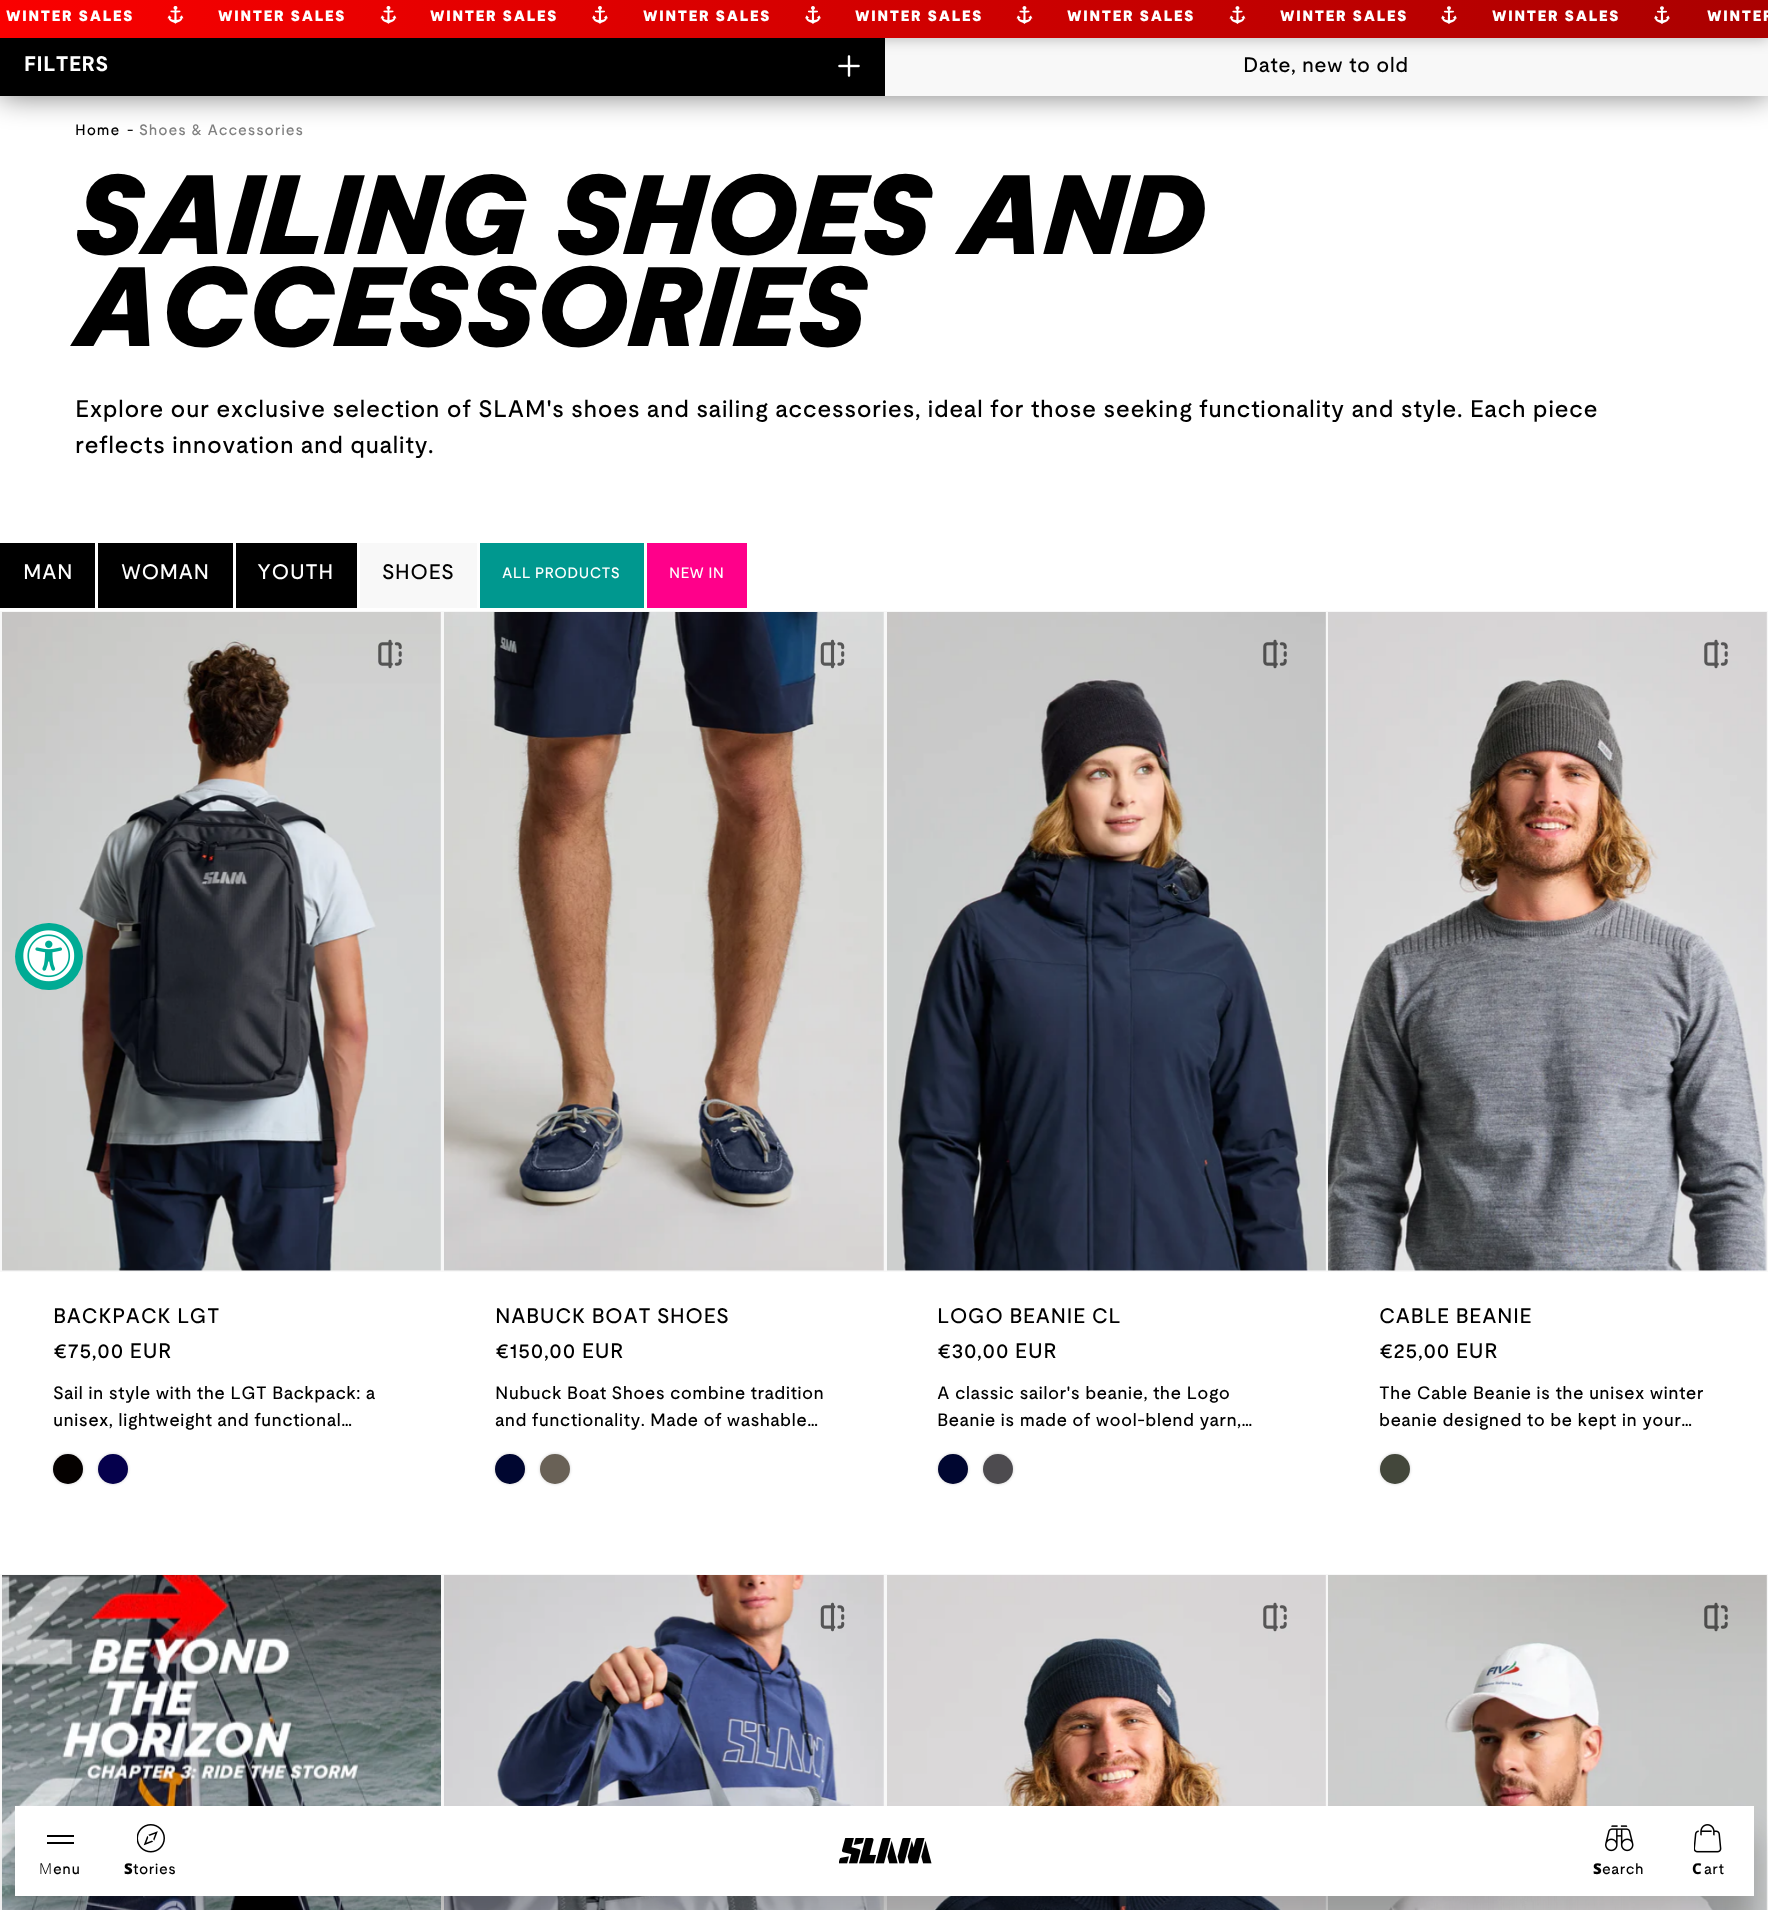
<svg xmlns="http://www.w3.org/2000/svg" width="1768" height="1910">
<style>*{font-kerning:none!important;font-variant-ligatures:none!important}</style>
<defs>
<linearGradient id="g1" gradientUnits="userSpaceOnUse" x1="0" y1="19" x2="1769" y2="19"><stop offset="0" stop-color="#fa0000"/><stop offset="1" stop-color="#a00"/></linearGradient>
</defs>
<rect width="100%" height="100%" fill="#fff"/>
<rect y="36" width="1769" height="60" fill="#00000085" filter="blur(15px)"/>
<rect x="885" y="38" width="883" height="58" fill="#f8f8f8"/>
<rect y="38" width="885" height="58" fill="#000"/>
<image x="838" y="55" width="22" height="22" href="media/24.png"/>
<rect width="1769" height="38" fill="#0000004a" filter="blur(7.5px)"/>
<rect width="1768" height="38" fill="url(#g1)"/>
<text x="6" y="21" style="font-family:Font;font-size:15px;font-weight:900;letter-spacing:1.75px;fill:#fff">WINTER SALES</text>
<image x="167" y="6" width="17" height="18" href="media/1.png"/>
<text x="218" y="21" style="font-family:Font;font-size:15px;font-weight:900;letter-spacing:1.75px;fill:#fff">WINTER SALES</text>
<image x="380" y="6" width="17" height="18" href="media/2.png"/>
<text x="430" y="21" style="font-family:Font;font-size:15px;font-weight:900;letter-spacing:1.75px;fill:#fff">WINTER SALES</text>
<image x="592" y="6" width="16" height="18" href="media/3.png"/>
<text x="643" y="21" style="font-family:Font;font-size:15px;font-weight:900;letter-spacing:1.75px;fill:#fff">WINTER SALES</text>
<image x="805" y="6" width="16" height="18" href="media/4.png"/>
<text x="855" y="21" style="font-family:Font;font-size:15px;font-weight:900;letter-spacing:1.75px;fill:#fff">WINTER SALES</text>
<image x="1016" y="6" width="17" height="18" href="media/5.png"/>
<text x="1067" y="21" style="font-family:Font;font-size:15px;font-weight:900;letter-spacing:1.75px;fill:#fff">WINTER SALES</text>
<image x="1229" y="6" width="17" height="18" href="media/6.png"/>
<text x="1280" y="21" style="font-family:Font;font-size:15px;font-weight:900;letter-spacing:1.75px;fill:#fff">WINTER SALES</text>
<image x="1441" y="6" width="16" height="18" href="media/7.png"/>
<text x="1492" y="21" style="font-family:Font;font-size:15px;font-weight:900;letter-spacing:1.75px;fill:#fff">WINTER SALES</text>
<image x="1654" y="6" width="16" height="18" href="media/8.png"/>
<text x="1707" y="21" style="font-family:Font;font-size:15px;font-weight:900;letter-spacing:1.75px;fill:#fff">WINTER</text>
<text x="1243" y="72" style="font-family:Font;font-size:21px;font-weight:500;letter-spacing:0.4px;fill:#000">Date, new to old</text>
<rect y="543" width="95" height="65" fill="#000"/>
<text x="23" y="579" style="font-family:Font;font-size:21px;font-weight:500;letter-spacing:0.4px;fill:#fff">MAN</text>
<rect x="98" y="543" width="135" height="65" fill="#000"/>
<text x="121" y="579" style="font-family:Font;font-size:21px;font-weight:500;letter-spacing:0.4px;fill:#fff">WOMAN</text>
<rect x="236" y="543" width="121" height="65" fill="#000"/>
<text x="257" y="579" style="font-family:Font;font-size:21px;font-weight:500;letter-spacing:0.4px;fill:#fff">YOUTH</text>
<rect x="360" y="543" width="117" height="65" fill="#f8f8f8"/>
<text x="382" y="579" style="font-family:Font;font-size:21px;font-weight:500;letter-spacing:0.4px;fill:#000">SHOES</text>
<rect x="480" y="543" width="164" height="65" fill="#00988f"/>
<text x="502" y="578" style="font-family:Font;font-size:15px;font-weight:500;letter-spacing:0.25px;fill:#fff">ALL PRODUCTS</text>
<rect x="647" y="543" width="100" height="65" fill="#ff008a"/>
<text x="669" y="578" style="font-family:Font;font-size:15px;font-weight:500;letter-spacing:0.25px;fill:#fff">NEW IN</text>
<rect x="1" y="612" width="441" height="659" fill="none" stroke="#f8f8f8" stroke-width="2"/>
<image x="2" y="612" width="439" height="659" href="media/10.png"/>
<image x="378" y="639" width="24" height="30" href="media/9.png"/>
<text x="53" y="1323" style="font-family:Font;font-size:21px;font-weight:500;letter-spacing:0.4px;fill:#000">BACKPACK LGT</text>
<text x="53" y="1358" style="font-family:Font;font-size:21px;font-weight:500;letter-spacing:0.4px;fill:#000">€75,00 EUR</text>
<text x="53" y="1399" style="font-family:Font;font-size:18px;font-weight:500;letter-spacing:0.35px;fill:#000">Sail in style with the LGT Backpack: a</text>
<text x="53" y="1426" style="font-family:Font;font-size:18px;font-weight:500;letter-spacing:0.35px;fill:#000">unisex, lightweight and functional…</text>
<rect x="53" y="1454" width="30" height="30" rx="15" fill="#00000033" filter="blur(1.5px)"/>
<circle cx="68" cy="1469" r="15" fill="#050100"/>
<rect x="98" y="1454" width="30" height="30" rx="15" fill="#00000033" filter="blur(1.5px)"/>
<circle cx="113" cy="1469" r="15" fill="#05004c"/>
<rect x="444" y="612" width="440" height="659" fill="none" stroke="#f8f8f8" stroke-width="2"/>
<image x="444" y="612" width="440" height="659" href="media/12.png"/>
<image x="820" y="639" width="25" height="30" href="media/11.png"/>
<text x="495" y="1323" style="font-family:Font;font-size:21px;font-weight:500;letter-spacing:0.4px;fill:#000">NABUCK BOAT SHOES</text>
<text x="495" y="1358" style="font-family:Font;font-size:21px;font-weight:500;letter-spacing:0.4px;fill:#000">€150,00 EUR</text>
<text x="495" y="1399" style="font-family:Font;font-size:18px;font-weight:500;letter-spacing:0.35px;fill:#000">Nubuck Boat Shoes combine tradition</text>
<text x="495" y="1426" style="font-family:Font;font-size:18px;font-weight:500;letter-spacing:0.35px;fill:#000">and functionality. Made of washable…</text>
<rect x="495" y="1454" width="30" height="30" rx="15" fill="#00000033" filter="blur(1.5px)"/>
<circle cx="510" cy="1469" r="15" fill="#000630"/>
<rect x="540" y="1454" width="30" height="30" rx="15" fill="#00000033" filter="blur(1.5px)"/>
<circle cx="555" cy="1469" r="15" fill="#696156"/>
<rect x="886" y="612" width="439" height="659" fill="none" stroke="#f8f8f8" stroke-width="2"/>
<image x="887" y="612" width="439" height="659" href="media/14.png"/>
<image x="1263" y="639" width="24" height="30" href="media/13.png"/>
<text x="937" y="1323" style="font-family:Font;font-size:21px;font-weight:500;letter-spacing:0.4px;fill:#000">LOGO BEANIE CL</text>
<text x="937" y="1358" style="font-family:Font;font-size:21px;font-weight:500;letter-spacing:0.4px;fill:#000">€30,00 EUR</text>
<text x="937" y="1399" style="font-family:Font;font-size:18px;font-weight:500;letter-spacing:0.35px;fill:#000">A classic sailor's beanie, the Logo</text>
<text x="937" y="1426" style="font-family:Font;font-size:18px;font-weight:500;letter-spacing:0.35px;fill:#000">Beanie is made of wool-blend yarn,…</text>
<rect x="938" y="1454" width="30" height="30" rx="15" fill="#00000033" filter="blur(1.5px)"/>
<circle cx="953" cy="1469" r="15" fill="#000630"/>
<rect x="983" y="1454" width="30" height="30" rx="15" fill="#00000033" filter="blur(1.5px)"/>
<circle cx="998" cy="1469" r="15" fill="#4d4b4f"/>
<rect x="1327" y="612" width="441" height="659" fill="none" stroke="#f8f8f8" stroke-width="2"/>
<image x="1328" y="612" width="439" height="659" href="media/16.png"/>
<image x="1704" y="639" width="24" height="30" href="media/15.png"/>
<text x="1379" y="1323" style="font-family:Font;font-size:21px;font-weight:500;letter-spacing:0.4px;fill:#000">CABLE BEANIE</text>
<text x="1379" y="1358" style="font-family:Font;font-size:21px;font-weight:500;letter-spacing:0.4px;fill:#000">€25,00 EUR</text>
<text x="1379" y="1399" style="font-family:Font;font-size:18px;font-weight:500;letter-spacing:0.35px;fill:#000">The Cable Beanie is the unisex winter</text>
<text x="1379" y="1426" style="font-family:Font;font-size:18px;font-weight:500;letter-spacing:0.35px;fill:#000">beanie designed to be kept in your…</text>
<rect x="1380" y="1454" width="30" height="30" rx="15" fill="#00000033" filter="blur(1.5px)"/>
<circle cx="1395" cy="1469" r="15" fill="#43473b"/>
<rect x="1" y="1575" width="441" height="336" fill="none" stroke="#f8f8f8" stroke-width="2"/>
<image x="2" y="1575" width="439" height="335" href="media/17.png"/>
<rect x="444" y="1575" width="440" height="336" fill="none" stroke="#f8f8f8" stroke-width="2"/>
<image x="444" y="1575" width="440" height="335" href="media/18.png"/>
<image x="820" y="1602" width="25" height="30" href="media/19.png"/>
<rect x="886" y="1575" width="439" height="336" fill="none" stroke="#f8f8f8" stroke-width="2"/>
<image x="887" y="1575" width="439" height="335" href="media/20.png"/>
<image x="1263" y="1602" width="24" height="30" href="media/21.png"/>
<rect x="1327" y="1575" width="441" height="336" fill="none" stroke="#f8f8f8" stroke-width="2"/>
<image x="1328" y="1575" width="439" height="335" href="media/22.png"/>
<image x="1704" y="1602" width="24" height="30" href="media/23.png"/>
<text x="24" y="71" style="font-family:Font;font-size:21px;font-weight:bold;letter-spacing:0.5px;fill:#fff">FILTERS</text>
<text x="75" y="135" style="font-family:Font;font-size:15px;font-weight:500;letter-spacing:0.9px;fill:#000">Home</text>
<text x="127" y="135" style="font-family:Font;font-size:15px;font-weight:500;letter-spacing:0.9px;fill:#000">-</text>
<text x="139" y="135" style="font-family:Font;font-size:15px;font-weight:500;letter-spacing:0.9px;fill:#808080">Shoes &amp; Accessories</text>
<text x="75" y="254" style="font-family:Font;font-size:112.5px;font-weight:900;font-style:italic;fill:#000">SAILING SHOES AND</text>
<text x="75" y="346" style="font-family:Font;font-size:112.5px;font-weight:900;font-style:italic;fill:#000">ACCESSORIES</text>
<text x="75" y="417" style="font-family:Font;font-size:24px;font-weight:500;letter-spacing:0.51px;fill:#000">Explore our exclusive selection of SLAM's</text>
<text x="571" y="417" style="font-family:Font;font-size:24px;font-weight:500;letter-spacing:0.51px;fill:#000">shoes and sailing accessories, ideal for those seeking</text>
<text x="1199" y="417" style="font-family:Font;font-size:24px;font-weight:500;letter-spacing:0.51px;fill:#000">functionality and style. Each piece</text>
<text x="75" y="453" style="font-family:Font;font-size:24px;font-weight:500;letter-spacing:0.51px;fill:#000">reflects innovation and quality.</text>
<rect x="15" y="923" width="68" height="67" rx="33.5" fill="#00ab94"/>
<image x="23" y="930" width="52" height="52" href="media/25.png"/>
<rect x="15" y="1836" width="1739" height="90" fill="#00000040" filter="blur(15px)"/>
<rect x="15" y="1806" width="1739" height="90" fill="#fff"/>
<image x="839" y="1838" width="93" height="26" href="media/26.png"/>
<rect x="47" y="1835" width="27" height="2" fill="#000"/>
<rect x="47" y="1842" width="27" height="2" fill="#000"/>
<text x="39" y="1874" style="font-family:Noto Sans;font-size:15px;font-weight:300;letter-spacing:0.51px;fill:#000">M</text>
<text x="53" y="1874" style="font-family:Font;font-size:15px;font-weight:500;letter-spacing:0.51px;fill:#000">enu</text>
<image x="137" y="1824" width="28" height="29" href="media/27.png"/>
<text x="124" y="1874" style="font-family:Noto Sans;font-size:15px;font-weight:900;letter-spacing:0.51px;fill:#000">S</text>
<text x="133" y="1874" style="font-family:Font;font-size:15px;font-weight:500;letter-spacing:0.51px;fill:#000">tories</text>
<image x="1605" y="1825" width="29" height="27" href="media/28.png"/>
<text x="1593" y="1874" style="font-family:Noto Sans;font-size:15px;font-weight:900;letter-spacing:0.51px;fill:#000">S</text>
<text x="1602" y="1874" style="font-family:Font;font-size:15px;font-weight:500;letter-spacing:0.51px;fill:#000">earch</text>
<image x="1694" y="1824" width="28" height="29" href="media/29.png"/>
<text x="1692" y="1874" style="font-family:Noto Sans;font-size:15px;font-weight:800;letter-spacing:0.51px;fill:#000">C</text>
<text x="1704" y="1874" style="font-family:Font;font-size:15px;font-weight:500;letter-spacing:0.51px;fill:#000">art</text>
</svg>
